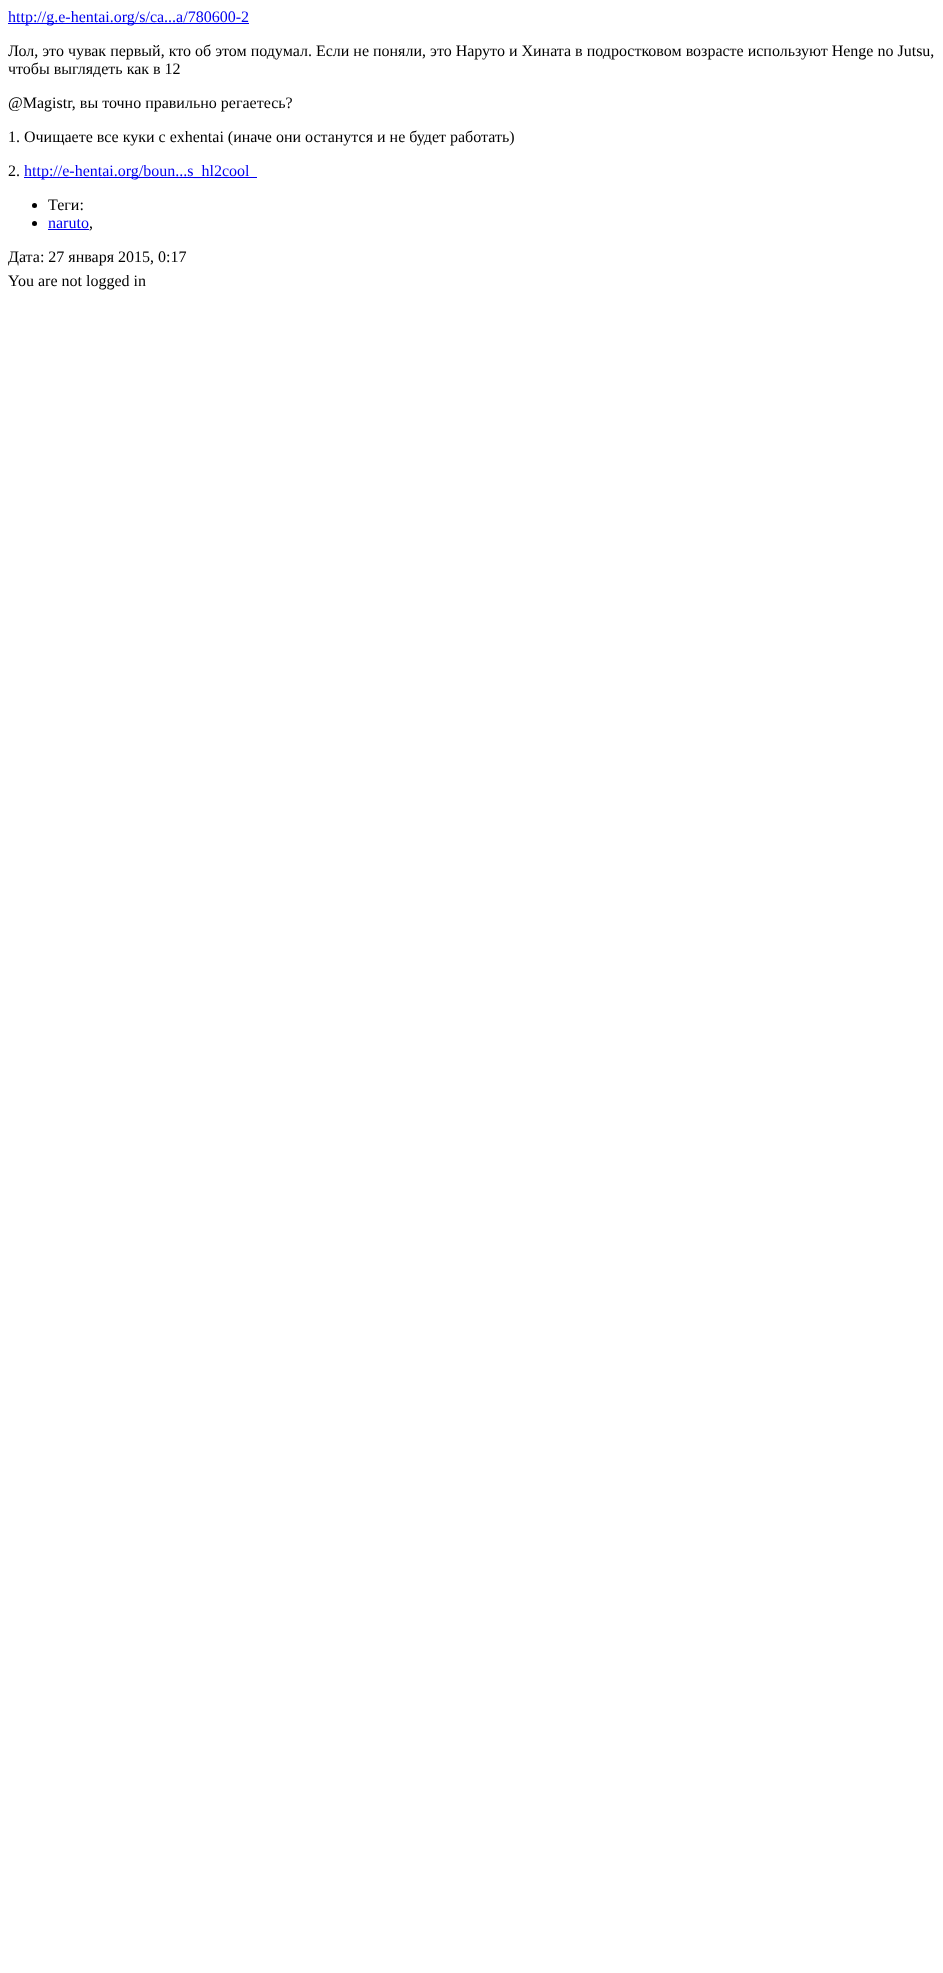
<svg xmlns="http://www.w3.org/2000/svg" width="943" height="1973">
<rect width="100%" height="100%" fill="#fff"/>
<rect x="8" y="23" width="241" height="1" fill="#00e"/>
<text x="8" y="22" style="font-family:Liberation Serif;font-size:16px;fill:#00e">http://g.e-hentai.org/s/ca...a/780600-2</text>
<text x="8" y="56" style="font-family:Liberation Serif;font-size:16px;fill:#000">Лол, это чувак первый, кто об этом подумал. Если не поняли, это Наруто и Хината в подростковом возрасте используют Henge no Jutsu,</text>
<text x="8" y="74" style="font-family:Liberation Serif;font-size:16px;fill:#000">чтобы выглядеть как в 12</text>
<text x="8" y="108" style="font-family:Liberation Serif;font-size:16px;fill:#000">@Magistr, вы точно правильно регаетесь?</text>
<text x="8" y="142" style="font-family:Liberation Serif;font-size:16px;fill:#000">1. Очищаете все куки с exhentai (иначе они останутся и не будет работать)</text>
<text x="8" y="176" style="font-family:Liberation Serif;font-size:16px;fill:#000">2.</text>
<rect x="24" y="177" width="233" height="1" fill="#00e"/>
<text x="24" y="176" style="font-family:Liberation Serif;font-size:16px;fill:#00e">http://e-hentai.org/boun...s_hl2cool</text>
<circle cx="34.5" cy="205.5" r="2.5" fill="#000"/>
<text x="48" y="210" style="font-family:Liberation Serif;font-size:16px;fill:#000">Теги:</text>
<circle cx="34.5" cy="223.5" r="2.5" fill="#000"/>
<text x="48" y="228" style="font-family:Liberation Serif;font-size:16px;fill:#00e">naruto</text>
<rect x="48" y="229" width="41" height="1" fill="#00e"/>
<text x="89" y="228" style="font-family:Liberation Serif;font-size:16px;fill:#000">,</text>
<text x="8" y="262" style="font-family:Liberation Serif;font-size:16px;fill:#000">Дата: 27 января 2015, 0:17</text>
<text x="8" y="286" style="font-family:Liberation Serif;font-size:16px;fill:#000">You are not logged in</text>
</svg>
